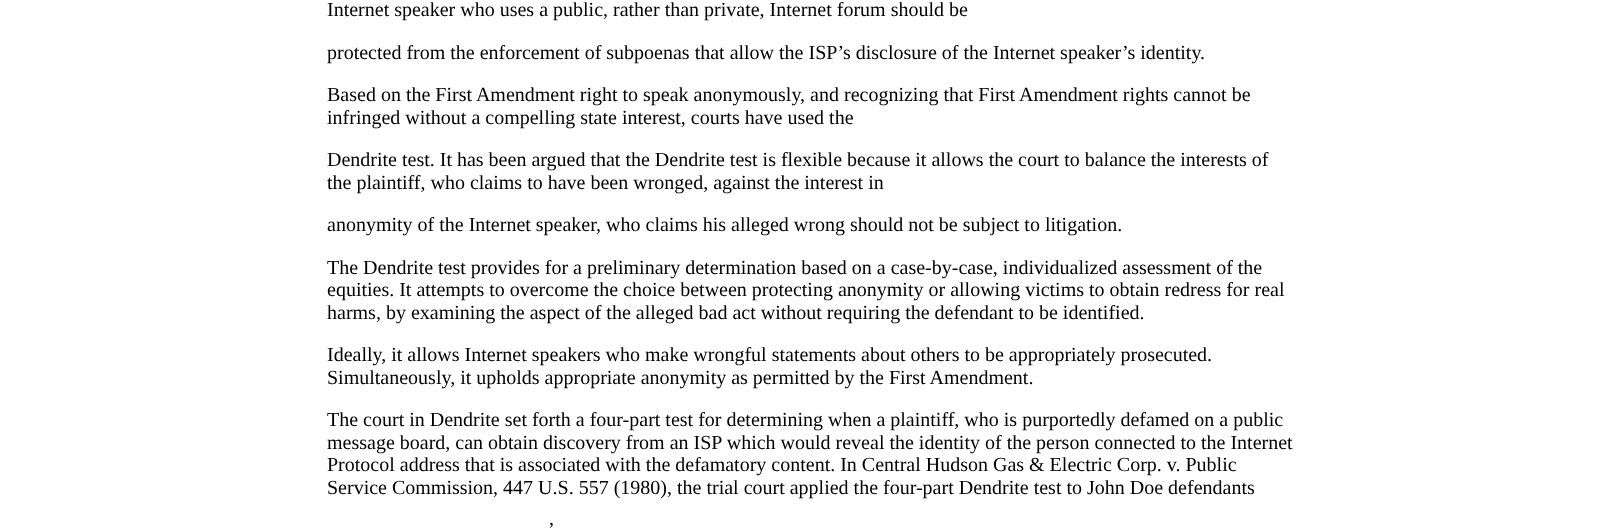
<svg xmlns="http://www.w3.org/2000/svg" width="1622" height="530">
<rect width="100%" height="100%" fill="#fff"/>
<text x="327" y="16" style="font-family:Liberation Serif;font-size:20px;fill:#000">Internet speaker who uses a public, rather than private, Internet forum should be</text>
<text x="327" y="59" style="font-family:Liberation Serif;font-size:20px;fill:#000">protected from the enforcement of subpoenas that allow the ISP’s disclosure of the Internet speaker’s identity.</text>
<text x="327" y="101" style="font-family:Liberation Serif;font-size:20px;fill:#000">Based on the First Amendment right to speak anonymously, and recognizing that First Amendment rights cannot be</text>
<text x="327" y="124" style="font-family:Liberation Serif;font-size:20px;fill:#000">infringed without a compelling state interest, courts have used the</text>
<text x="327" y="166" style="font-family:Liberation Serif;font-size:20px;fill:#000">Dendrite test. It has been argued that the Dendrite test is flexible because it allows the court to balance the interests of</text>
<text x="327" y="189" style="font-family:Liberation Serif;font-size:20px;fill:#000">the plaintiff, who claims to have been wronged, against the interest in</text>
<text x="327" y="231" style="font-family:Liberation Serif;font-size:20px;fill:#000">anonymity of the Internet speaker, who claims his alleged wrong should not be subject to litigation.</text>
<text x="327" y="274" style="font-family:Liberation Serif;font-size:20px;fill:#000">The Dendrite test provides for a preliminary determination based on a case-by-case, individualized assessment of the</text>
<text x="327" y="296" style="font-family:Liberation Serif;font-size:20px;fill:#000">equities. It attempts to overcome the choice between protecting anonymity or allowing victims to obtain redress for real</text>
<text x="327" y="319" style="font-family:Liberation Serif;font-size:20px;fill:#000">harms, by examining the aspect of the alleged bad act without requiring the defendant to be identified.</text>
<text x="327" y="361" style="font-family:Liberation Serif;font-size:20px;fill:#000">Ideally, it allows Internet speakers who make wrongful statements about others to be appropriately prosecuted.</text>
<text x="327" y="384" style="font-family:Liberation Serif;font-size:20px;fill:#000">Simultaneously, it upholds appropriate anonymity as permitted by the First Amendment.</text>
<text x="327" y="426" style="font-family:Liberation Serif;font-size:20px;fill:#000">The court in Dendrite set forth a four-part test for determining when a plaintiff, who is purportedly defamed on a public</text>
<text x="327" y="449" style="font-family:Liberation Serif;font-size:20px;fill:#000">message board, can obtain discovery from an ISP which would reveal the identity of the person connected to the Internet</text>
<text x="327" y="471" style="font-family:Liberation Serif;font-size:20px;fill:#000">Protocol address that is associated with the defamatory content. In Central Hudson Gas &amp; Electric Corp. v. Public</text>
<text x="327" y="494" style="font-family:Liberation Serif;font-size:20px;fill:#000">Service Commission, 447 U.S. 557 (1980), the trial court applied the four-part Dendrite test to John Doe defendants</text>
<text x="548" y="536" style="font-family:Liberation Serif;font-size:20px;fill:#000">’</text>
</svg>
